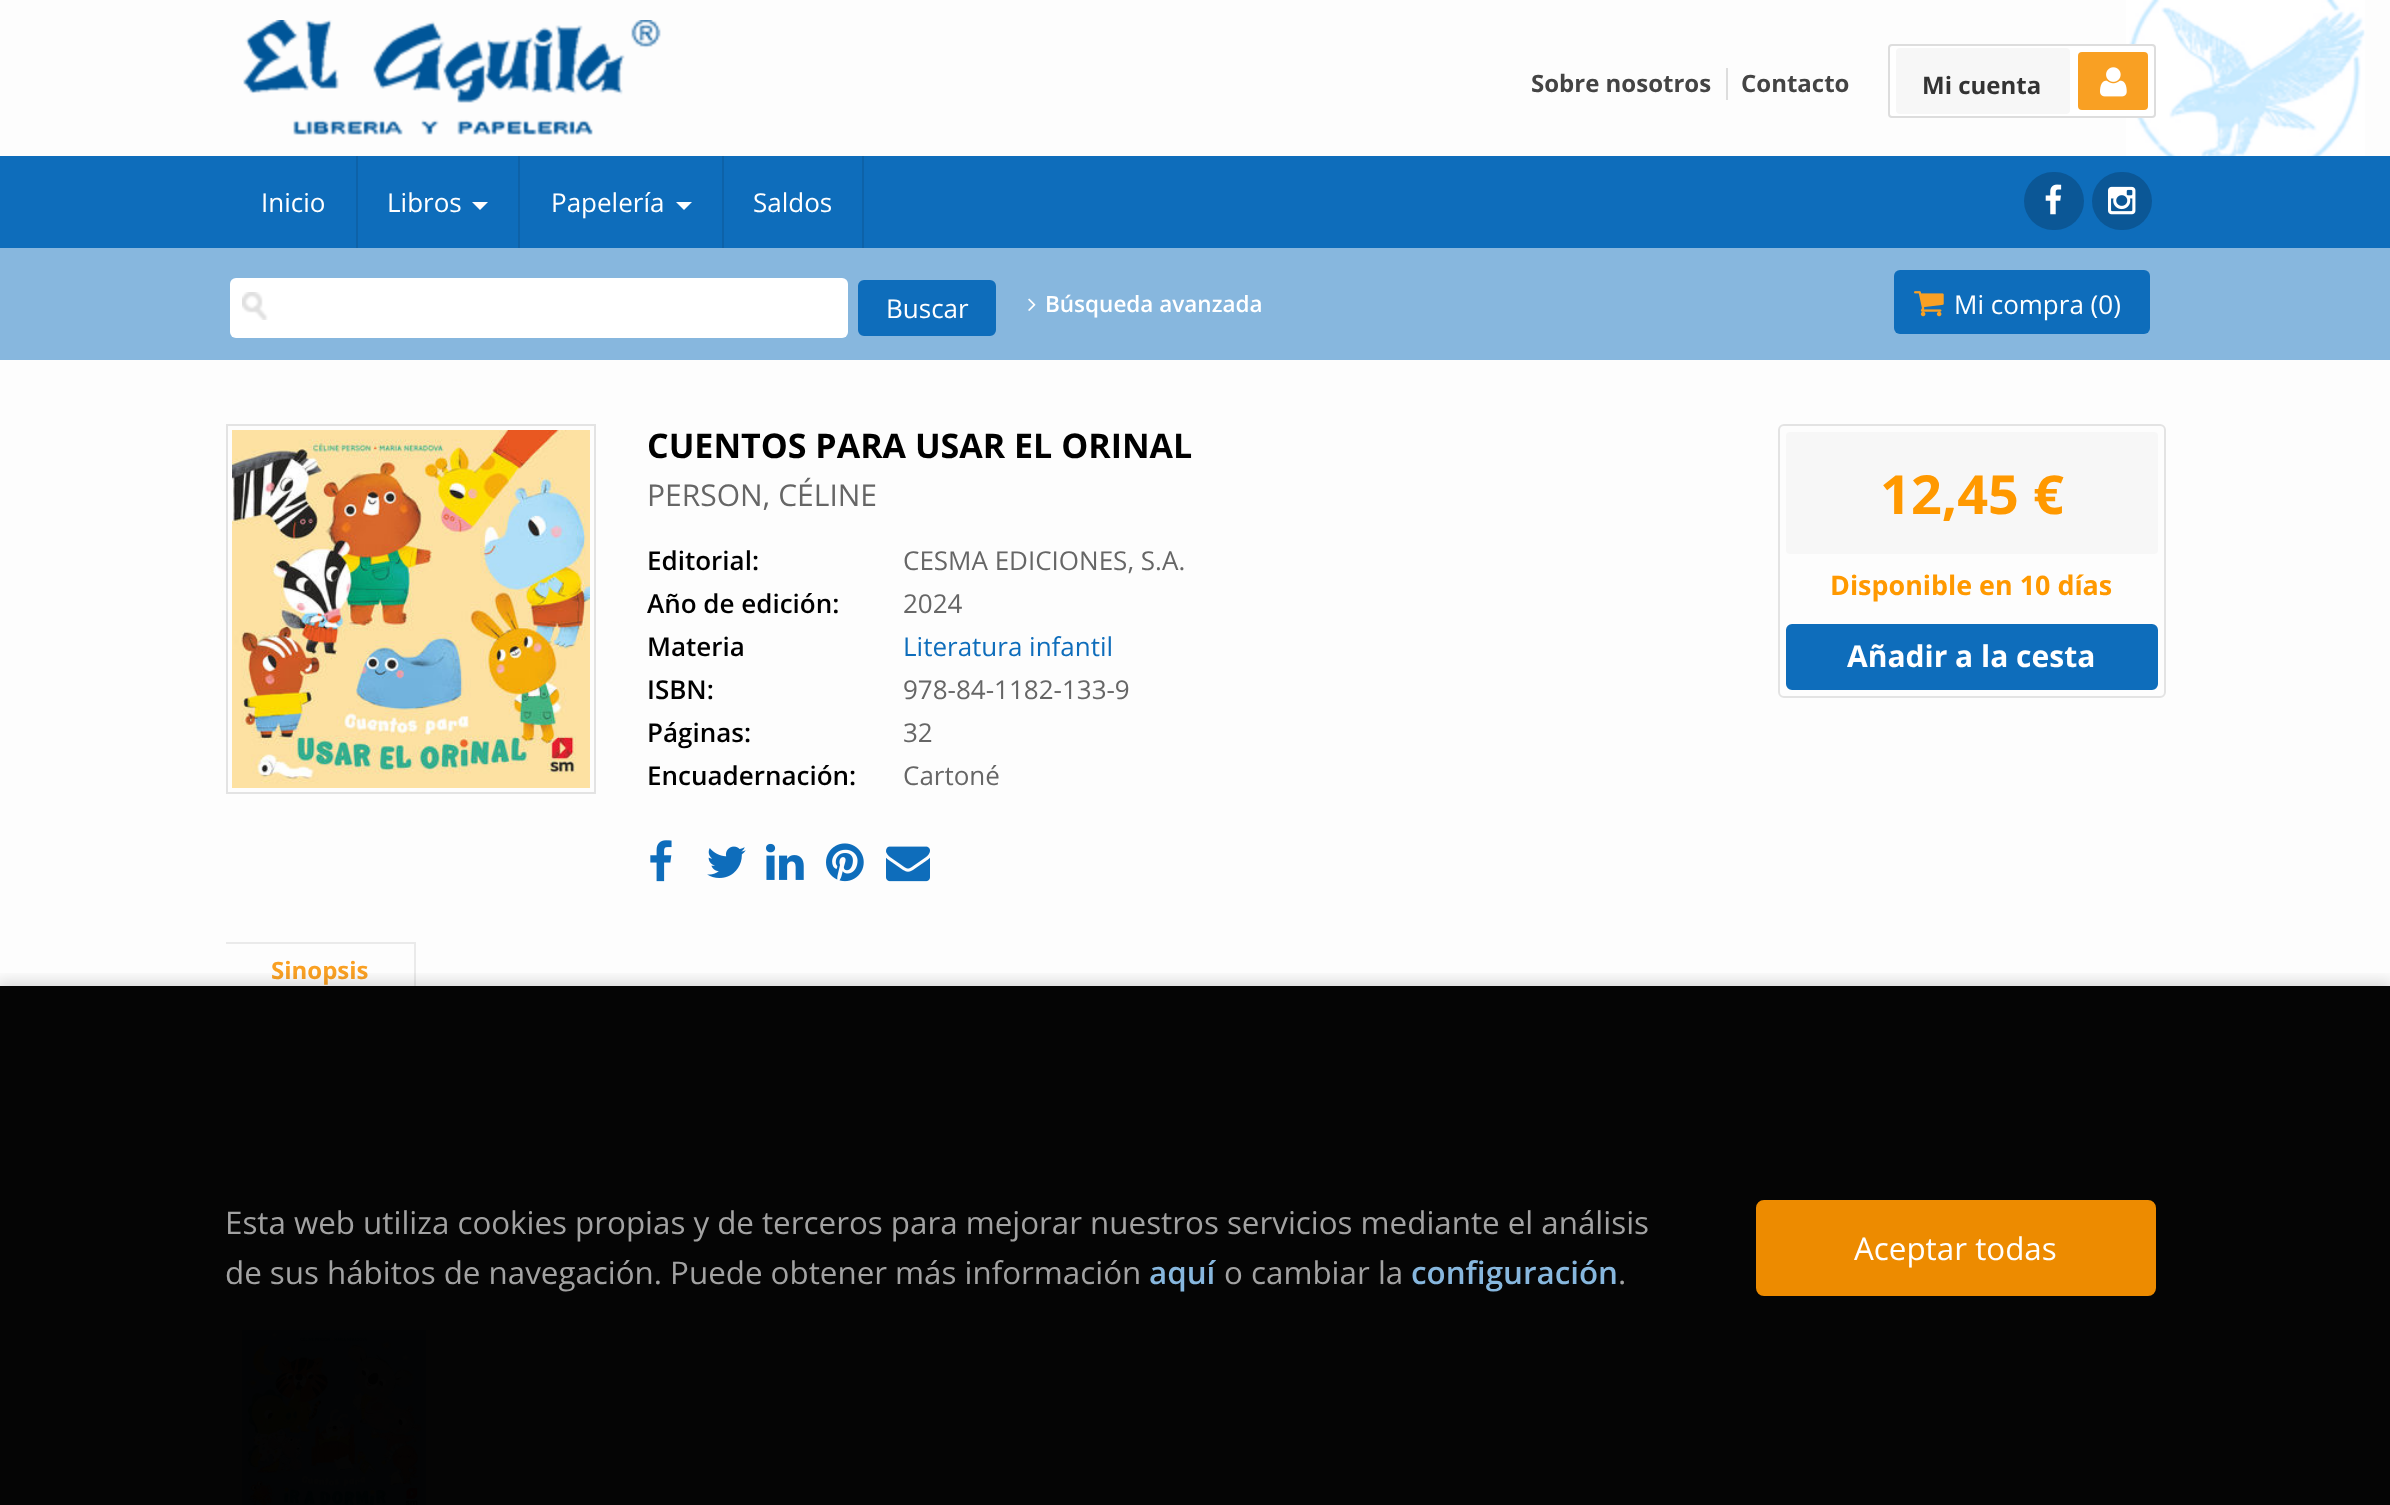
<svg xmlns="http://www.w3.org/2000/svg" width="2390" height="1505">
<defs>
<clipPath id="clip1"><rect x="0" y="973" width="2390" height="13"/></clipPath>
</defs>
<rect width="100%" height="100%" fill="#fdfdfd"/>
<rect y="986" width="2390" height="519" fill="#050505"/>
<image x="2126" y="0" width="239" height="156" href="media/1.png"/>
<image x="243" y="20" width="418" height="115" href="media/2.png"/>
<rect x="1726" y="68" width="2" height="32" fill="#ddd"/>
<text x="1531" y="92" style="font-family:Open Sans;font-size:24px;font-weight:bold;fill:#444">Sobre nosotros</text>
<text x="1741" y="92" style="font-family:Open Sans;font-size:24px;font-weight:bold;fill:#444">Contacto</text>
<rect x="1889" y="45" width="266" height="72" rx="3" fill="#fff" stroke="#ddd" stroke-width="2"/>
<rect x="1896" y="48" width="174" height="66" rx="4" fill="#f7f7f7"/>
<text x="1922" y="94" style="font-family:Open Sans;font-size:24px;font-weight:bold;fill:#333">Mi cuenta</text>
<rect x="2078" y="52" width="70" height="58" rx="4" fill="#f9a023"/>
<image x="2100" y="67" width="27" height="30" href="media/3.png"/>
<rect y="156" width="2390" height="92" fill="#0e6dbb"/>
<rect x="356" y="156" width="2" height="92" fill="#0d62a8"/>
<text x="261" y="212" style="font-family:Open Sans;font-size:26px;fill:#fff">Inicio</text>
<rect x="518" y="156" width="2" height="92" fill="#0d62a8"/>
<text x="387" y="212" style="font-family:Open Sans;font-size:26px;fill:#fff">Libros</text>
<path d="M472 202h16l-8 8z" fill="#fff"/>
<rect x="722" y="156" width="2" height="92" fill="#0d62a8"/>
<text x="551" y="212" style="font-family:Open Sans;font-size:26px;fill:#fff">Papelería</text>
<path d="M676 202h16l-8 8z" fill="#fff"/>
<rect x="862" y="156" width="2" height="92" fill="#0d62a8"/>
<text x="753" y="212" style="font-family:Open Sans;font-size:26px;fill:#fff">Saldos</text>
<rect x="2024" y="172" width="60" height="58" rx="29" fill="#0b5796"/>
<image x="2045" y="184" width="17" height="31" href="media/4.png"/>
<rect x="2092" y="172" width="60" height="58" rx="29" fill="#0b5796"/>
<image x="2108" y="186" width="28" height="29" href="media/5.png"/>
<rect y="248" width="2390" height="112" fill="#87b7de"/>
<rect x="230" y="278" width="618" height="60" rx="6" fill="#fff"/>
<image x="242" y="292" width="26" height="28" href="media/6.png"/>
<rect x="859" y="281" width="136" height="54" rx="5" fill="#0e6dbb" stroke="#0e6dbb" stroke-width="2"/>
<text x="886" y="318" style="font-family:Open Sans;font-size:26px;fill:#fff">Buscar</text>
<image x="1028" y="298" width="8" height="13" href="media/7.png"/>
<text x="1045" y="312" style="font-family:Open Sans;font-size:22.5px;font-weight:600;fill:#fff">Búsqueda avanzada</text>
<rect x="1894" y="270" width="256" height="64" rx="6" fill="#0e6dbb"/>
<image x="1914" y="291" width="30" height="26" href="media/8.png"/>
<text x="1954" y="314" style="font-family:Open Sans;font-size:26px;fill:#fff">Mi compra (0)</text>
<rect x="227" y="425" width="368" height="368" fill="none" stroke="#e3e3e3" stroke-width="2"/>
<image x="232" y="430" width="358" height="358" href="media/9.png"/>
<text x="647" y="458" style="font-family:Open Sans;font-size:34px;font-weight:bold;fill:#000">CUENTOS PARA USAR EL ORINAL</text>
<text x="647" y="506" style="font-family:Open Sans;font-size:30px;fill:#666">PERSON, CÉLINE</text>
<text x="647" y="570" style="font-family:Open Sans;font-size:26px;font-weight:600;fill:#000">Editorial:</text>
<text x="903" y="570" style="font-family:Open Sans;font-size:26px;fill:#666">CESMA EDICIONES, S.A.</text>
<text x="647" y="613" style="font-family:Open Sans;font-size:26px;font-weight:600;fill:#000">Año de edición:</text>
<text x="903" y="613" style="font-family:Open Sans;font-size:26px;fill:#666">2024</text>
<text x="647" y="656" style="font-family:Open Sans;font-size:26px;font-weight:600;fill:#000">Materia</text>
<text x="903" y="656" style="font-family:Open Sans;font-size:26px;fill:#0e6dbb">Literatura infantil</text>
<text x="647" y="699" style="font-family:Open Sans;font-size:26px;font-weight:600;fill:#000">ISBN:</text>
<text x="903" y="699" style="font-family:Open Sans;font-size:26px;fill:#666">978-84-1182-133-9</text>
<text x="647" y="742" style="font-family:Open Sans;font-size:26px;font-weight:600;fill:#000">Páginas:</text>
<text x="903" y="742" style="font-family:Open Sans;font-size:26px;fill:#666">32</text>
<text x="647" y="785" style="font-family:Open Sans;font-size:26px;font-weight:600;fill:#000">Encuadernación:</text>
<text x="903" y="785" style="font-family:Open Sans;font-size:26px;fill:#666">Cartoné</text>
<image x="650" y="840" width="22" height="42" href="media/10.png"/>
<image x="707" y="846" width="39" height="32" href="media/11.png"/>
<image x="766" y="843" width="38" height="37" href="media/12.png"/>
<image x="826" y="843" width="38" height="39" href="media/13.png"/>
<image x="886" y="846" width="44" height="36" href="media/14.png"/>
<rect x="1779" y="425" width="386" height="272" rx="5" fill="none" stroke="#e3e3e3" stroke-width="2"/>
<rect x="1786" y="432" width="372" height="122" rx="4" fill="#f7f7f7"/>
<text x="1880" y="514" style="font-family:Open Sans;font-size:54px;font-weight:bold;fill:#f90">12,45 €</text>
<text x="1830" y="595" style="font-family:Open Sans;font-size:26.9px;font-weight:bold;fill:#f90">Disponible en 10 días</text>
<rect x="1787" y="625" width="370" height="64" rx="5" fill="#0e6dbb" stroke="#0e6dbb" stroke-width="2"/>
<text x="1847" y="667" style="font-family:Open Sans;font-size:30px;font-weight:bold;fill:#fff">Añadir a la cesta</text>
<rect x="226" y="942" width="190" height="2" fill="#eaeaea"/>
<rect x="414" y="942" width="2" height="44" fill="#eaeaea"/>
<text x="271" y="979" style="font-family:Open Sans;font-size:24px;font-weight:bold;fill:#f9a023">Sinopsis</text>
<image x="242" y="1330" width="184" height="175" href="media/15.png"/>
<g clip-path="url(#clip1)">
<rect x="-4" y="982" width="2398" height="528" fill="#00000026" filter="blur(8px)"/>
</g>
<text x="225" y="1234" word-spacing="-0.1" style="font-family:Open Sans;font-size:31.35px;fill:#a2a2a2">Esta web utiliza cookies propias y de terceros para mejorar nuestros servicios mediante el análisis</text>
<text x="225" y="1284" word-spacing="-0.1" style="font-family:Open Sans;font-size:31.35px;fill:#a2a2a2">de sus hábitos de navegación. Puede obtener más información</text>
<text x="1149" y="1284" style="font-family:Open Sans;font-size:31.35px;font-weight:600;fill:#87b7de">aquí</text>
<text x="1224" y="1284" style="font-family:Open Sans;font-size:31.35px;fill:#a2a2a2">o cambiar la</text>
<text x="1411" y="1284" style="font-family:Open Sans;font-size:31.35px;font-weight:600;fill:#87b7de">configuración</text>
<text x="1618" y="1284" style="font-family:Open Sans;font-size:31.35px;fill:#a2a2a2">.</text>
<rect x="1757" y="1201" width="398" height="94" rx="7" fill="#ed8b00" stroke="#ed8b00" stroke-width="2"/>
<text x="1854" y="1260" style="font-family:Open Sans;font-size:31.35px;fill:#fff">Aceptar todas</text>
</svg>
